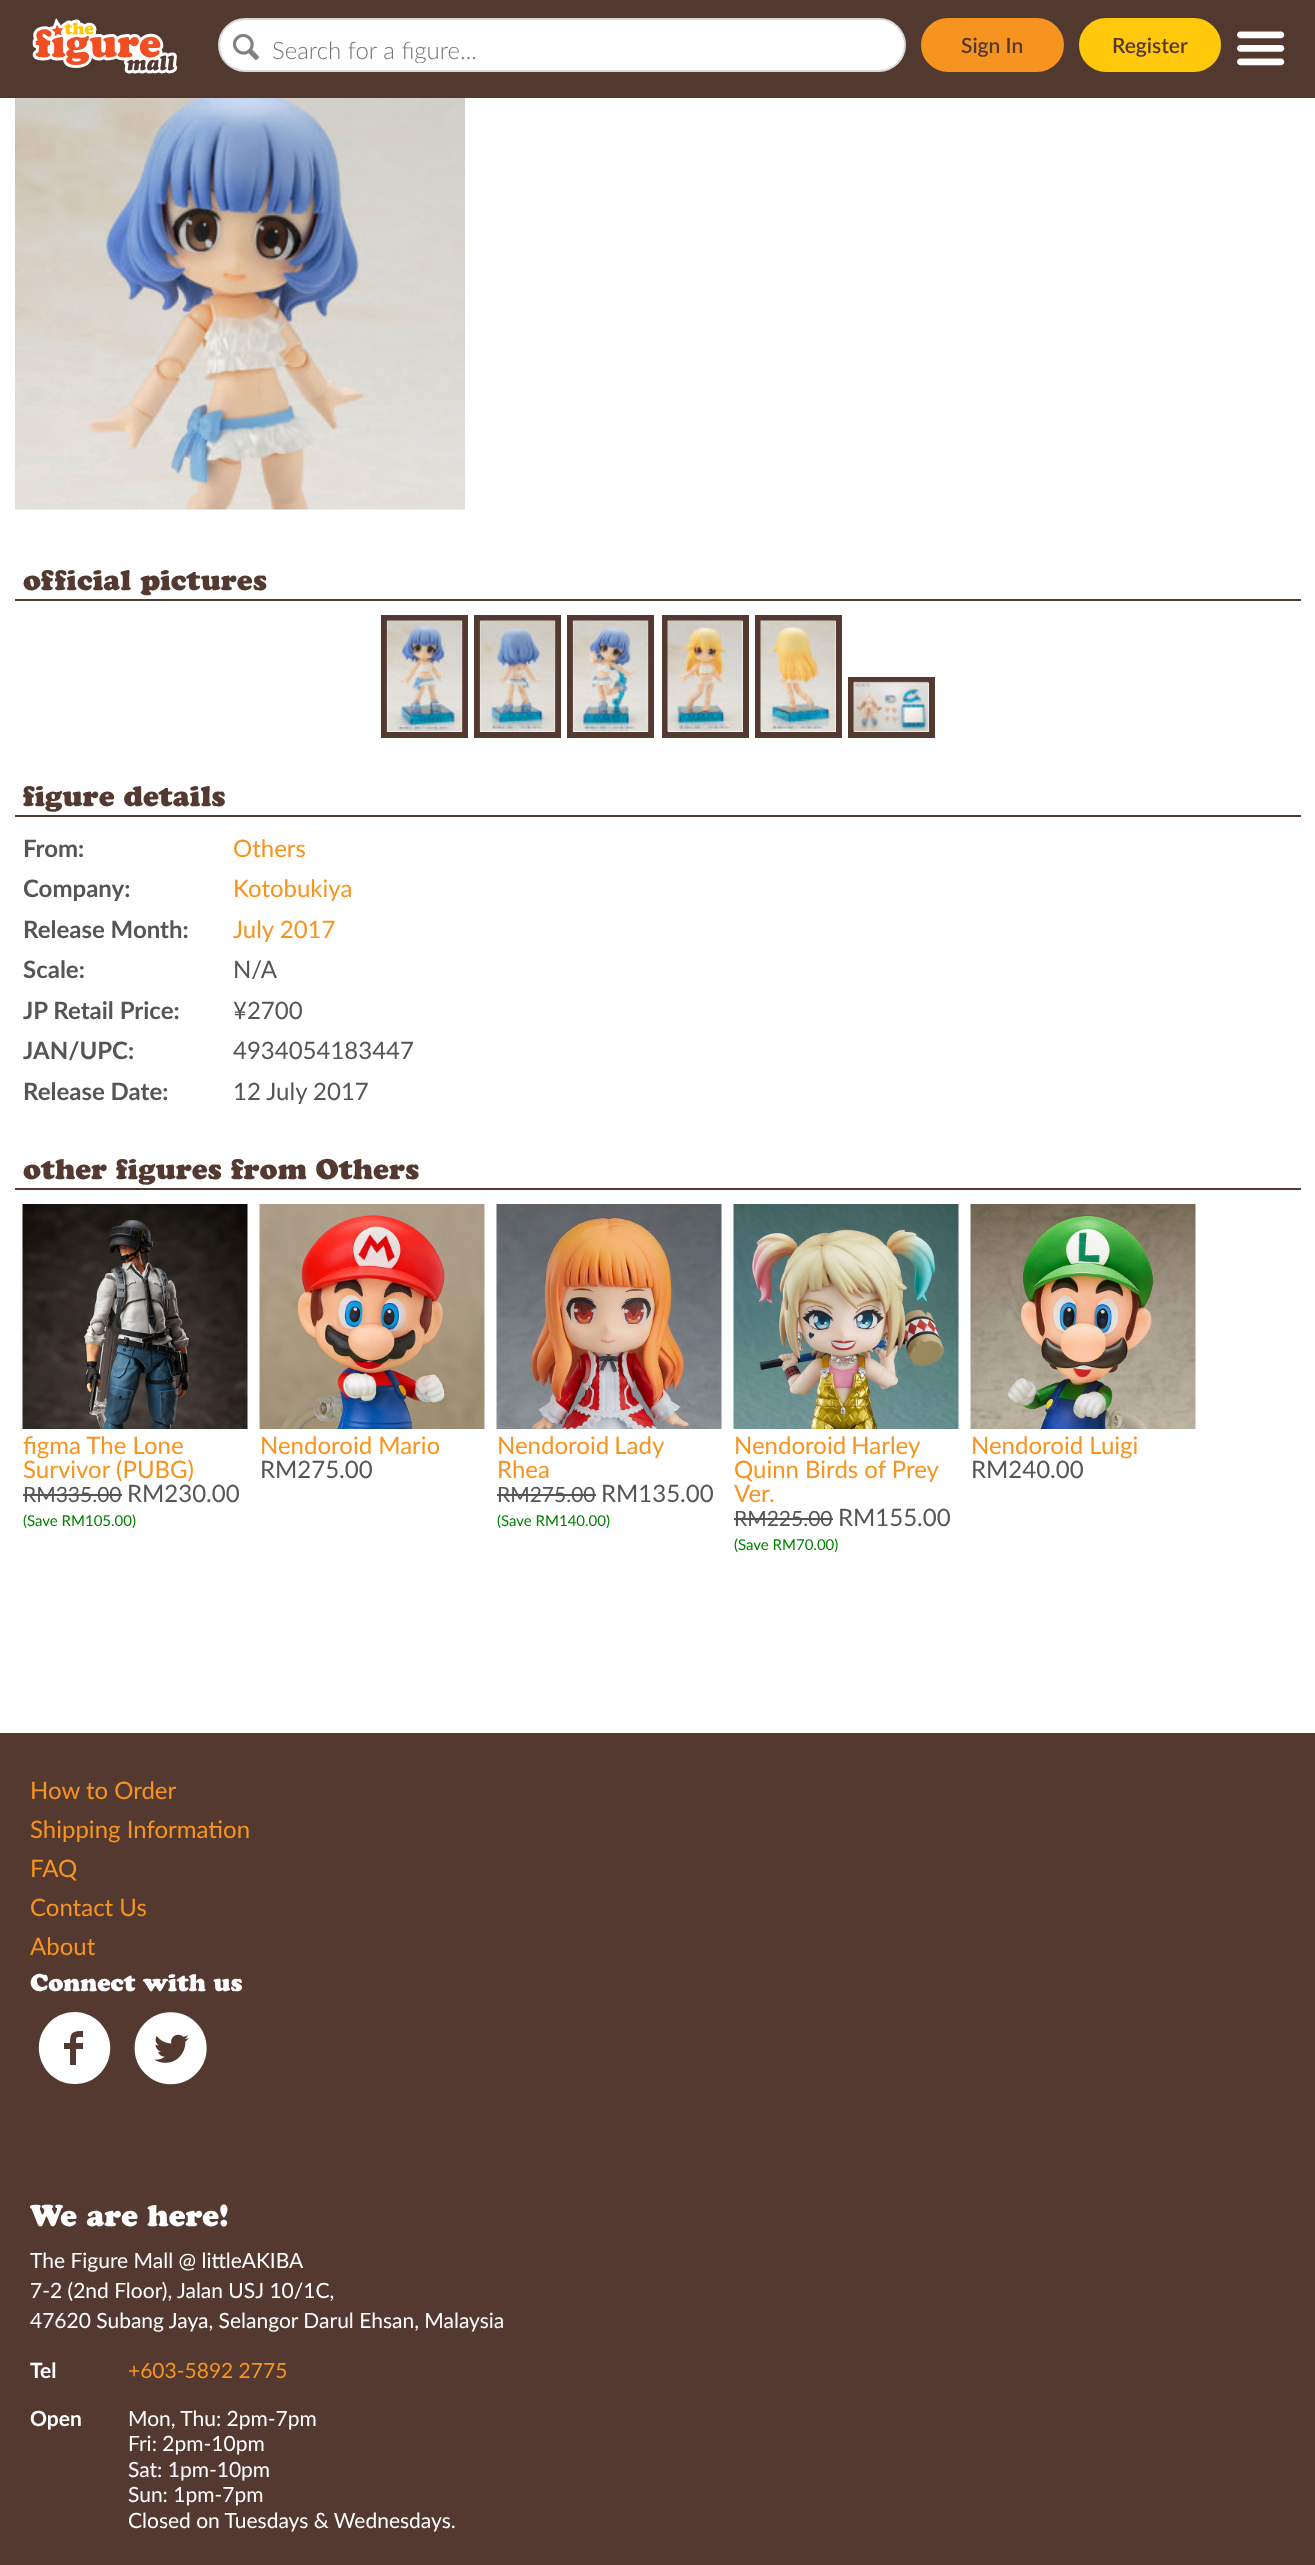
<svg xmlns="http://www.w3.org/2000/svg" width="1315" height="2565">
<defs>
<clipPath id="clip1"><rect x="272" y="35" width="610" height="28"/></clipPath>
</defs>
<rect width="100%" height="100%" fill="#fff"/>
<rect width="1315" height="98" fill="#523930"/>
<image x="32" y="18" width="146" height="56" href="media/1.png"/>
<rect x="219" y="19" width="686" height="52" rx="26" fill="#fff" stroke="#d8d8d8" stroke-width="2"/>
<image x="233" y="33" width="26" height="27" href="media/2.png"/>
<g clip-path="url(#clip1)">
<text x="272" y="59" style="font-family:Lato;font-size:24px;font-weight:300;fill:#757575">Search for a figure...</text>
</g>
<rect x="922" y="19" width="141" height="52" rx="26" fill="#f79420" stroke="#f79420" stroke-width="2"/>
<text x="961" y="53" style="font-family:Lato;font-size:21px;font-weight:600;fill:#533930">Sign In</text>
<rect x="1080" y="19" width="140" height="52" rx="26" fill="#ffc80a" stroke="#ffc80a" stroke-width="2"/>
<text x="1112" y="53" style="font-family:Lato;font-size:21px;font-weight:600;fill:#533930">Register</text>
<image x="1237" y="31" width="48" height="35" href="media/3.png"/>
<image x="15" y="98" width="450" height="412" href="media/4.png"/>
<rect x="15" y="599" width="1286" height="2" fill="#533930"/>
<text x="23" y="590" style="font-family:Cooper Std;font-size:28.5px;font-weight:900;fill:#533930">official pictures</text>
<rect x="384" y="618" width="81" height="117" fill="none" stroke="#533930" stroke-width="6"/>
<rect x="477" y="618" width="81" height="117" fill="none" stroke="#533930" stroke-width="6"/>
<rect x="570" y="618" width="81" height="117" fill="none" stroke="#533930" stroke-width="6"/>
<rect x="665" y="618" width="81" height="117" fill="none" stroke="#533930" stroke-width="6"/>
<rect x="758" y="618" width="81" height="117" fill="none" stroke="#533930" stroke-width="6"/>
<image x="386" y="620" width="77" height="112" href="media/5.png"/>
<image x="479" y="620" width="77" height="112" href="media/6.png"/>
<image x="572" y="620" width="77" height="112" href="media/7.png"/>
<image x="667" y="620" width="76" height="112" href="media/8.png"/>
<image x="760" y="620" width="76" height="112" href="media/9.png"/>
<rect x="851" y="680" width="81" height="55" fill="none" stroke="#533930" stroke-width="6"/>
<image x="853" y="681" width="76" height="51" href="media/10.png"/>
<rect x="15" y="815" width="1286" height="2" fill="#533930"/>
<text x="23" y="806" style="font-family:Cooper Std;font-size:28.5px;font-weight:900;fill:#533930">figure details</text>
<text x="23" y="857" style="font-family:Lato;font-size:24px;font-weight:bold;fill:#555">From:</text>
<text x="233" y="857" style="font-family:Lato;font-size:24px;fill:#f79420">Others</text>
<text x="23" y="897" style="font-family:Lato;font-size:24px;font-weight:bold;fill:#555">Company:</text>
<text x="233" y="897" style="font-family:Lato;font-size:24px;fill:#f79420">Kotobukiya</text>
<text x="23" y="938" style="font-family:Lato;font-size:24px;font-weight:bold;fill:#555">Release Month:</text>
<text x="233" y="938" style="font-family:Lato;font-size:24px;fill:#f79420">July 2017</text>
<text x="23" y="978" style="font-family:Lato;font-size:24px;font-weight:bold;fill:#555">Scale:</text>
<text x="233" y="978" style="font-family:Lato;font-size:24px;fill:#555">N/A</text>
<text x="23" y="1019" style="font-family:Lato;font-size:24px;font-weight:bold;fill:#555">JP Retail Price:</text>
<text x="233" y="1019" style="font-family:Lato;font-size:24px;fill:#555">¥2700</text>
<text x="23" y="1059" style="font-family:Lato;font-size:24px;font-weight:bold;fill:#555">JAN/UPC:</text>
<text x="233" y="1059" style="font-family:Lato;font-size:24px;fill:#555">4934054183447</text>
<text x="23" y="1100" style="font-family:Lato;font-size:24px;font-weight:bold;fill:#555">Release Date:</text>
<text x="233" y="1100" style="font-family:Lato;font-size:24px;fill:#555">12 July 2017</text>
<rect x="15" y="1188" width="1286" height="2" fill="#533930"/>
<text x="23" y="1179" style="font-family:Cooper Std;font-size:28.5px;font-weight:900;fill:#533930">other figures from Others</text>
<image x="22" y="1204" width="226" height="225" href="media/11.png"/>
<text x="23" y="1454" style="font-family:Lato;font-size:24px;fill:#f79420">figma The Lone</text>
<text x="23" y="1478" style="font-family:Lato;font-size:24px;fill:#f79420">Survivor (PUBG)</text>
<text x="23" y="1502" style="font-family:Lato;font-size:21px;fill:#555">RM335.00</text>
<rect x="23" y="1494" width="99" height="2" fill="#555"/>
<text x="127" y="1502" style="font-family:Lato;font-size:24px;fill:#555">RM230.00</text>
<text x="23" y="1526" style="font-family:Lato;font-size:15px;fill:#008000">(Save RM105.00)</text>
<image x="259" y="1204" width="226" height="225" href="media/12.png"/>
<text x="260" y="1454" style="font-family:Lato;font-size:24px;fill:#f79420">Nendoroid Mario</text>
<text x="260" y="1478" style="font-family:Lato;font-size:24px;fill:#555">RM275.00</text>
<image x="496" y="1204" width="226" height="225" href="media/13.png"/>
<text x="497" y="1454" word-spacing="-1" style="font-family:Lato;font-size:24px;fill:#f79420">Nendoroid Lady</text>
<text x="497" y="1478" style="font-family:Lato;font-size:24px;fill:#f79420">Rhea</text>
<text x="497" y="1502" style="font-family:Lato;font-size:21px;fill:#555">RM275.00</text>
<rect x="497" y="1494" width="99" height="2" fill="#555"/>
<text x="601" y="1502" style="font-family:Lato;font-size:24px;fill:#555">RM135.00</text>
<text x="497" y="1526" style="font-family:Lato;font-size:15px;fill:#008000">(Save RM140.00)</text>
<image x="733" y="1204" width="226" height="225" href="media/14.png"/>
<text x="734" y="1454" word-spacing="-1" style="font-family:Lato;font-size:24px;fill:#f79420">Nendoroid Harley</text>
<text x="734" y="1478" style="font-family:Lato;font-size:24px;fill:#f79420">Quinn Birds of Prey</text>
<text x="734" y="1502" style="font-family:Lato;font-size:24px;fill:#f79420">Ver.</text>
<text x="734" y="1526" style="font-family:Lato;font-size:21px;fill:#555">RM225.00</text>
<rect x="734" y="1518" width="99" height="2" fill="#555"/>
<text x="838" y="1526" style="font-family:Lato;font-size:24px;fill:#555">RM155.00</text>
<text x="734" y="1550" style="font-family:Lato;font-size:15px;fill:#008000">(Save RM70.00)</text>
<image x="970" y="1204" width="226" height="225" href="media/15.png"/>
<text x="971" y="1454" style="font-family:Lato;font-size:24px;fill:#f79420">Nendoroid Luigi</text>
<text x="971" y="1478" style="font-family:Lato;font-size:24px;fill:#555">RM240.00</text>
<rect y="1733" width="1315" height="832" fill="#533930"/>
<text x="30" y="1799" style="font-family:Lato;font-size:24px;fill:#f79420">How to Order</text>
<text x="30" y="1838" style="font-family:Lato;font-size:24px;fill:#f79420">Shipping Information</text>
<text x="30" y="1877" style="font-family:Lato;font-size:24px;fill:#f79420">FAQ</text>
<text x="30" y="1916" style="font-family:Lato;font-size:24px;fill:#f79420">Contact Us</text>
<text x="30" y="1955" style="font-family:Lato;font-size:24px;fill:#f79420">About</text>
<text x="30" y="1991" style="font-family:Cooper Std;font-size:24px;font-weight:900;fill:#fff">Connect with us</text>
<path d="M75 2012c8 0 16 3 22 8c26 22 11 64-22 64c-34 0-49-42-23-64c6-5 14-8 23-8zm8 25v-6c-10 0-13 1-13 12h-6v6h6v16h6v-16h7v-6h-7c0-7 0-6 7-6z" fill="#fff"/>
<image x="134" y="2012" width="73" height="73" href="media/16.png"/>
<text x="30" y="2226" style="font-family:Cooper Std;font-size:30px;font-weight:900;fill:#fff">We are here!</text>
<text x="30" y="2268" style="font-family:Lato;font-size:21px;fill:#fff">The Figure Mall @ littleAKIBA</text>
<text x="30" y="2298" style="font-family:Lato;font-size:21px;fill:#fff">7-2 (2nd Floor), Jalan USJ 10/1C,</text>
<text x="30" y="2328" style="font-family:Lato;font-size:21px;fill:#fff">47620 Subang Jaya, Selangor Darul Ehsan, Malaysia</text>
<text x="30" y="2378" style="font-family:Lato;font-size:21px;font-weight:bold;fill:#fff">Tel</text>
<text x="128" y="2378" style="font-family:Lato;font-size:21px;fill:#f79420">+603-5892 2775</text>
<text x="30" y="2426" style="font-family:Lato;font-size:21px;font-weight:bold;fill:#fff">Open</text>
<text x="128" y="2426" style="font-family:Lato;font-size:21px;fill:#fff">Mon, Thu: 2pm-7pm</text>
<text x="128" y="2451" style="font-family:Lato;font-size:21px;fill:#fff">Fri: 2pm-10pm</text>
<text x="128" y="2477" style="font-family:Lato;font-size:21px;fill:#fff">Sat: 1pm-10pm</text>
<text x="128" y="2502" style="font-family:Lato;font-size:21px;fill:#fff">Sun: 1pm-7pm</text>
<text x="128" y="2528" style="font-family:Lato;font-size:21px;fill:#fff">Closed on Tuesdays &amp; Wednesdays.</text>
</svg>
